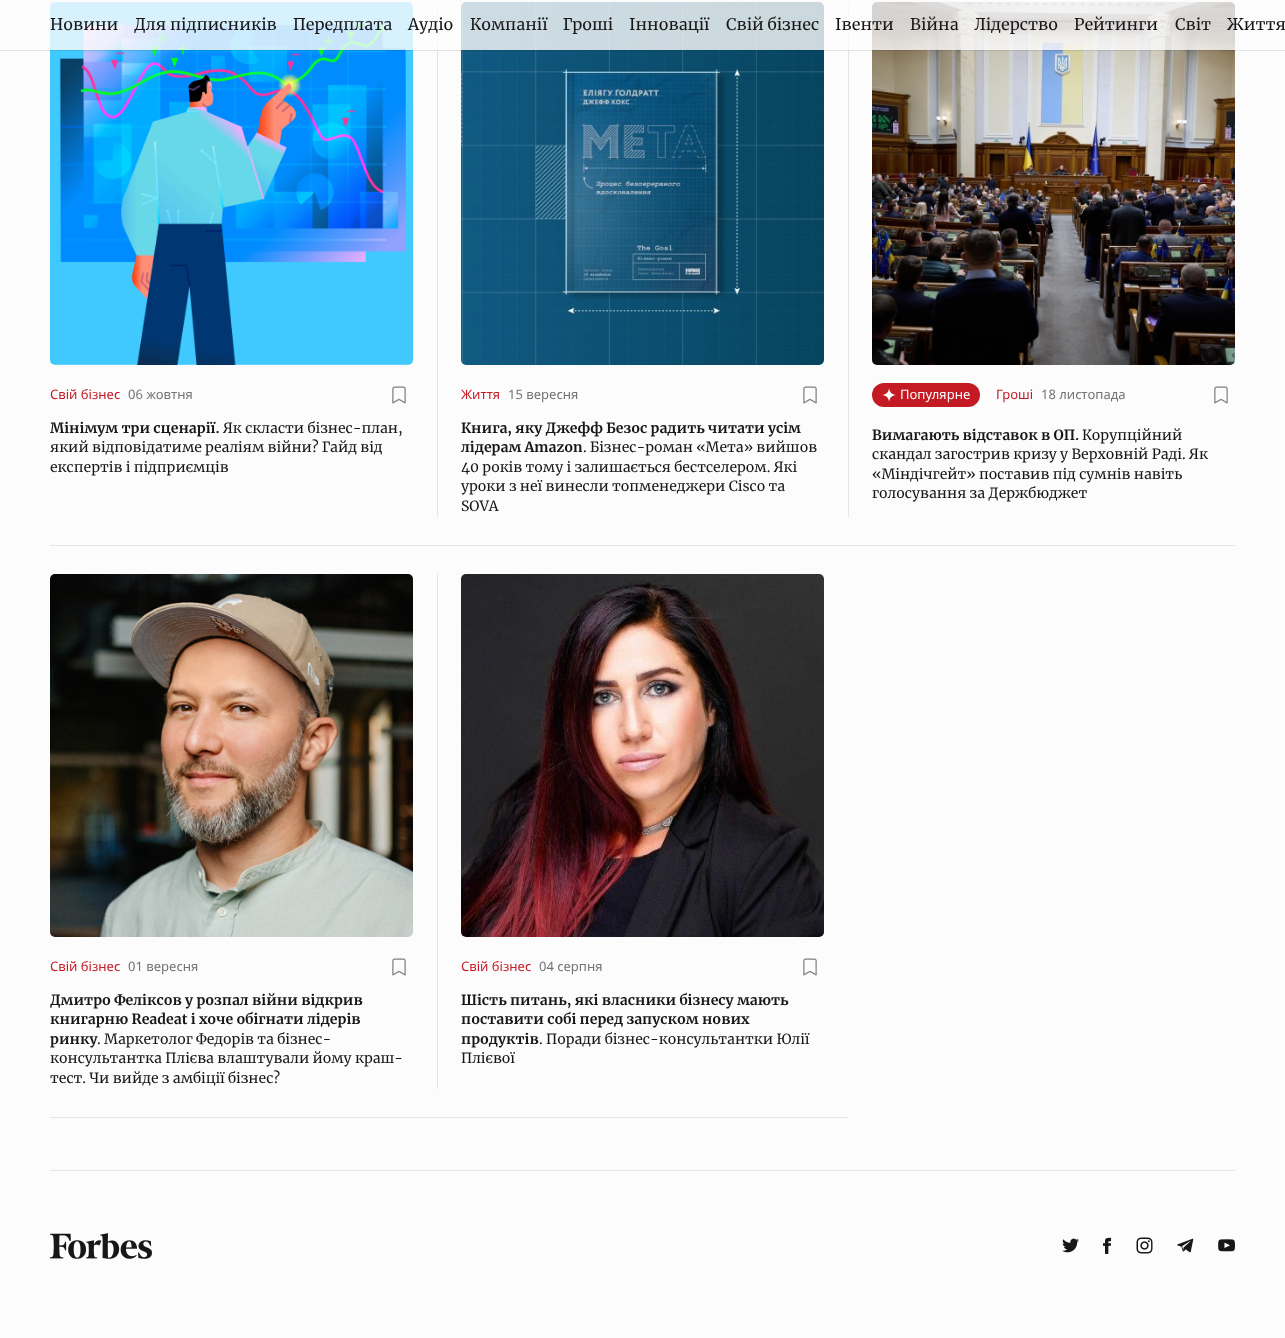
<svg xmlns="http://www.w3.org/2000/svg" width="1285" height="1338">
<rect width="100%" height="100%" fill="#fcfcfc"/>
<image x="50" y="2" width="363" height="363" href="media/1.png"/>
<rect x="437" y="2" width="1" height="515" fill="#e5e5e5"/>
<image x="461" y="2" width="363" height="363" href="media/3.png"/>
<rect x="848" y="2" width="1" height="515" fill="#e5e5e5"/>
<image x="872" y="2" width="363" height="363" href="media/4.png"/>
<rect x="50" y="2" width="1185" height="48" fill="#fcfcfccc"/>
<text x="50" y="30" style="font-family:Merriweather;font-size:16px;fill:#181716">Новини</text>
<text x="134" y="30" style="font-family:Merriweather;font-size:16px;fill:#181716">Для підписників</text>
<text x="293" y="30" style="font-family:Merriweather;font-size:16px;fill:#181716">Передплата</text>
<text x="408" y="30" style="font-family:Merriweather;font-size:16px;fill:#181716">Аудіо</text>
<text x="470" y="30" style="font-family:Merriweather;font-size:16px;fill:#181716">Компанії</text>
<text x="563" y="30" style="font-family:Merriweather;font-size:16px;fill:#181716">Гроші</text>
<text x="629" y="30" style="font-family:Merriweather;font-size:16px;fill:#181716">Інновації</text>
<text x="726" y="30" style="font-family:Merriweather;font-size:16px;fill:#181716">Свій бізнес</text>
<text x="835" y="30" style="font-family:Merriweather;font-size:16px;fill:#181716">Івенти</text>
<text x="910" y="30" style="font-family:Merriweather;font-size:16px;fill:#181716">Війна</text>
<text x="974" y="30" style="font-family:Merriweather;font-size:16px;fill:#181716">Лідерство</text>
<text x="1074" y="30" style="font-family:Merriweather;font-size:16px;fill:#181716">Рейтинги</text>
<text x="1175" y="30" style="font-family:Merriweather;font-size:16px;fill:#181716">Світ</text>
<text x="1227" y="30" style="font-family:Merriweather;font-size:16px;fill:#181716">Життя</text>
<rect y="50" width="1285" height="1" fill="#1817161a"/>
<rect x="50" y="545" width="1185" height="1" fill="#e5e5e5"/>
<text x="50" y="399" style="font-family:Noto Sans;font-size:13px;fill:#c41a23">Свій бізнес</text>
<text x="128" y="399" style="font-family:Noto Sans;font-size:13px;fill:#737373">06 жовтня</text>
<image x="392" y="386" width="14" height="18" href="media/2.png"/>
<text x="50" y="433" style="font-family:Merriweather;font-size:14px;font-weight:bold;fill:#181716">Мінімум три сценарії.</text>
<text x="223" y="433" style="font-family:Merriweather;font-size:14px;fill:#181716">Як скласти бізнес-план,</text>
<text x="50" y="452" style="font-family:Merriweather;font-size:14px;fill:#181716">який відповідатиме реаліям війни? Гайд від</text>
<text x="50" y="472" style="font-family:Merriweather;font-size:14px;fill:#181716">експертів і підприємців</text>
<text x="461" y="399" style="font-family:Noto Sans;font-size:13px;fill:#c41a23">Життя</text>
<text x="508" y="399" style="font-family:Noto Sans;font-size:13px;fill:#737373">15 вересня</text>
<image x="803" y="386" width="14" height="18" href="media/2.png"/>
<text x="461" y="433" style="font-family:Merriweather;font-size:14px;font-weight:bold;fill:#181716">Книга, яку Джефф Безос радить читати усім</text>
<text x="461" y="452" style="font-family:Merriweather;font-size:14px;font-weight:bold;fill:#181716">лідерам Amazon</text>
<text x="583" y="452" style="font-family:Merriweather;font-size:14px;fill:#181716">. Бізнес-роман «Мета» вийшов</text>
<text x="461" y="472" style="font-family:Merriweather;font-size:14px;fill:#181716">40 років тому і залишається бестселером. Які</text>
<text x="461" y="491" style="font-family:Merriweather;font-size:14px;fill:#181716">уроки з неї винесли топменеджери Cisco та</text>
<text x="461" y="511" style="font-family:Merriweather;font-size:14px;fill:#181716">SOVA</text>
<rect x="872" y="383" width="108" height="24" rx="12" fill="#c41a23"/>
<image x="882" y="388" width="14" height="14" href="media/5.png"/>
<text x="900" y="399" style="font-family:Noto Sans;font-size:13px;fill:#fff">Популярне</text>
<text x="996" y="399" style="font-family:Noto Sans;font-size:13px;fill:#c41a23">Гроші</text>
<text x="1041" y="399" style="font-family:Noto Sans;font-size:13px;fill:#737373">18 листопада</text>
<image x="1214" y="386" width="14" height="18" href="media/2.png"/>
<text x="872" y="440" style="font-family:Merriweather;font-size:14px;font-weight:bold;fill:#181716">Вимагають відставок в ОП.</text>
<text x="1082" y="440" style="font-family:Merriweather;font-size:14px;fill:#181716">Корупційний</text>
<text x="872" y="459" style="font-family:Merriweather;font-size:14px;fill:#181716">скандал загострив кризу у Верховній Раді. Як</text>
<text x="872" y="479" style="font-family:Merriweather;font-size:14px;fill:#181716">«Міндічгейт» поставив під сумнів навіть</text>
<text x="872" y="498" style="font-family:Merriweather;font-size:14px;fill:#181716">голосування за Держбюджет</text>
<rect x="50" y="1117" width="798" height="1" fill="#e5e5e5"/>
<image x="50" y="574" width="363" height="363" href="media/6.png"/>
<text x="50" y="971" style="font-family:Noto Sans;font-size:13px;fill:#c41a23">Свій бізнес</text>
<text x="128" y="971" style="font-family:Noto Sans;font-size:13px;fill:#737373">01 вересня</text>
<image x="392" y="958" width="14" height="18" href="media/2.png"/>
<text x="50" y="1005" style="font-family:Merriweather;font-size:14px;font-weight:bold;fill:#181716">Дмитро Феліксов у розпал війни відкрив</text>
<text x="50" y="1024" style="font-family:Merriweather;font-size:14px;font-weight:bold;fill:#181716">книгарню Readeat і хоче обігнати лідерів</text>
<text x="50" y="1044" style="font-family:Merriweather;font-size:14px;font-weight:bold;fill:#181716">ринку</text>
<text x="97" y="1044" style="font-family:Merriweather;font-size:14px;fill:#181716">. Маркетолог Федорів та бізнес-</text>
<text x="50" y="1063" style="font-family:Merriweather;font-size:14px;fill:#181716">консультантка Плієва влаштували йому краш-</text>
<text x="50" y="1083" style="font-family:Merriweather;font-size:14px;fill:#181716">тест. Чи вийде з амбіції бізнес?</text>
<rect x="437" y="574" width="1" height="515" fill="#e5e5e5"/>
<image x="461" y="574" width="363" height="363" href="media/7.png"/>
<text x="461" y="971" style="font-family:Noto Sans;font-size:13px;fill:#c41a23">Свій бізнес</text>
<text x="539" y="971" style="font-family:Noto Sans;font-size:13px;fill:#737373">04 серпня</text>
<image x="803" y="958" width="14" height="18" href="media/2.png"/>
<text x="461" y="1005" style="font-family:Merriweather;font-size:14px;font-weight:bold;fill:#181716">Шість питань, які власники бізнесу мають</text>
<text x="461" y="1024" style="font-family:Merriweather;font-size:14px;font-weight:bold;fill:#181716">поставити собі перед запуском нових</text>
<text x="461" y="1044" style="font-family:Merriweather;font-size:14px;font-weight:bold;fill:#181716">продуктів</text>
<text x="539" y="1044" style="font-family:Merriweather;font-size:14px;fill:#181716">. Поради бізнес-консультантки Юлії</text>
<text x="461" y="1063" style="font-family:Merriweather;font-size:14px;fill:#181716">Плієвої</text>
<rect x="50" y="1170" width="1185" height="1" fill="#e5e5e5"/>
<image x="50" y="1233" width="102" height="26" href="media/8.png"/>
<image x="1062" y="1238" width="17" height="15" href="media/9.png"/>
<image x="1103" y="1237" width="9" height="17" href="media/10.png"/>
<image x="1136" y="1237" width="17" height="17" href="media/11.png"/>
<image x="1177" y="1238" width="17" height="15" href="media/12.png"/>
<image x="1218" y="1239" width="17" height="13" href="media/13.png"/>
</svg>
